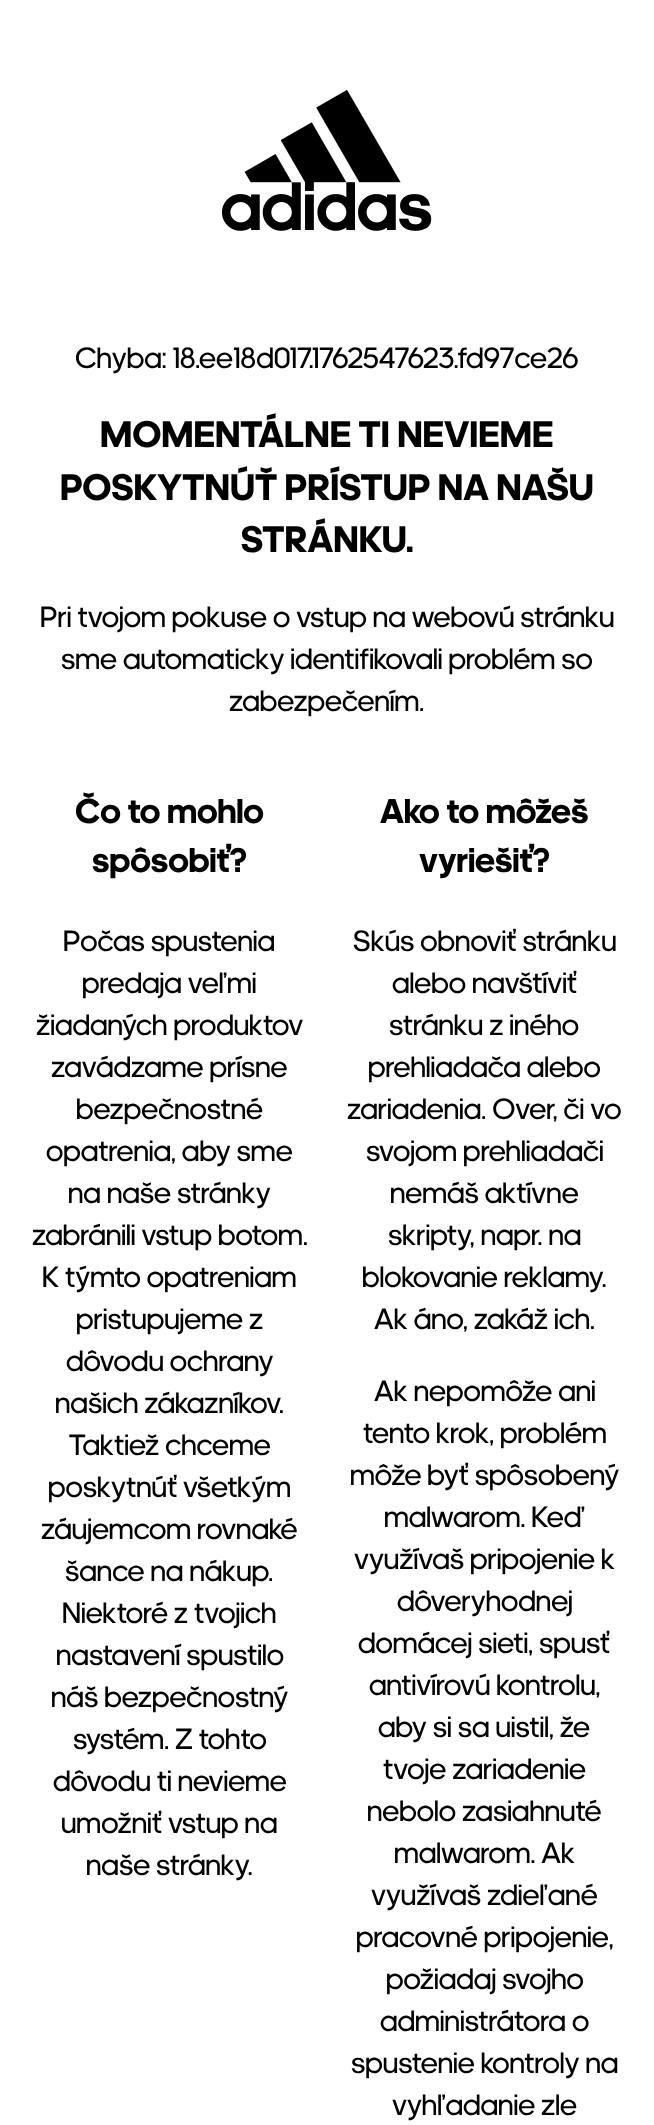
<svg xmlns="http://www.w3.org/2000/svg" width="654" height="2125">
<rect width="100%" height="100%" fill="#fff"/>
<image x="222" y="90" width="210" height="141" href="media/1.png"/>
<text x="75" y="368" style="font-family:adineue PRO;font-size:30px;fill:#000">Chyba: 18.ee18d017.1762547623.fd97ce26</text>
<text x="100" y="447" style="font-family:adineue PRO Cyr;font-size:37.5px;font-weight:bold;fill:#000">MOMENTÁLNE TI NEVIEME</text>
<text x="60" y="500" style="font-family:adineue PRO Cyr;font-size:37.5px;font-weight:bold;fill:#000">POSKYTNÚŤ PRÍSTUP NA NAŠU</text>
<text x="241" y="552" style="font-family:adineue PRO Cyr;font-size:37.5px;font-weight:bold;fill:#000">STRÁNKU.</text>
<text x="40" y="627" style="font-family:adineue PRO;font-size:30px;fill:#000">Pri tvojom pokuse o vstup na webovú stránku</text>
<text x="61" y="669" style="font-family:adineue PRO;font-size:30px;fill:#000">sme automaticky identifikovali problém so</text>
<text x="229" y="711" style="font-family:adineue PRO;font-size:30px;fill:#000">zabezpečením.</text>
<text x="75" y="823" style="font-family:adineue PRO Cyr;font-size:35px;font-weight:bold;fill:#000">Čo to mohlo</text>
<text x="92" y="872" style="font-family:adineue PRO Cyr;font-size:35px;font-weight:bold;fill:#000">spôsobiť?</text>
<text x="63" y="951" style="font-family:adineue PRO;font-size:30px;fill:#000">Počas spustenia</text>
<text x="82" y="993" style="font-family:adineue PRO;font-size:30px;fill:#000">predaja veľmi</text>
<text x="36" y="1035" style="font-family:adineue PRO;font-size:30px;fill:#000">žiadaných produktov</text>
<text x="51" y="1077" style="font-family:adineue PRO;font-size:30px;fill:#000">zavádzame prísne</text>
<text x="76" y="1119" style="font-family:adineue PRO;font-size:30px;fill:#000">bezpečnostné</text>
<text x="46" y="1161" style="font-family:adineue PRO;font-size:30px;fill:#000">opatrenia, aby sme</text>
<text x="68" y="1203" style="font-family:adineue PRO;font-size:30px;fill:#000">na naše stránky</text>
<text x="32" y="1245" style="font-family:adineue PRO;font-size:30px;fill:#000">zabránili vstup botom.</text>
<text x="42" y="1287" style="font-family:adineue PRO;font-size:30px;fill:#000">K týmto opatreniam</text>
<text x="76" y="1329" style="font-family:adineue PRO;font-size:30px;fill:#000">pristupujeme z</text>
<text x="66" y="1371" style="font-family:adineue PRO;font-size:30px;fill:#000">dôvodu ochrany</text>
<text x="55" y="1413" style="font-family:adineue PRO;font-size:30px;fill:#000">našich zákazníkov.</text>
<text x="69" y="1455" style="font-family:adineue PRO;font-size:30px;fill:#000">Taktiež chceme</text>
<text x="48" y="1497" style="font-family:adineue PRO;font-size:30px;fill:#000">poskytnúť všetkým</text>
<text x="41" y="1539" style="font-family:adineue PRO;font-size:30px;fill:#000">záujemcom rovnaké</text>
<text x="65" y="1581" style="font-family:adineue PRO;font-size:30px;fill:#000">šance na nákup.</text>
<text x="62" y="1623" style="font-family:adineue PRO;font-size:30px;fill:#000">Niektoré z tvojich</text>
<text x="56" y="1665" style="font-family:adineue PRO;font-size:30px;fill:#000">nastavení spustilo</text>
<text x="51" y="1707" style="font-family:adineue PRO;font-size:30px;fill:#000">náš bezpečnostný</text>
<text x="73" y="1749" style="font-family:adineue PRO;font-size:30px;fill:#000">systém. Z tohto</text>
<text x="53" y="1791" style="font-family:adineue PRO;font-size:30px;fill:#000">dôvodu ti nevieme</text>
<text x="61" y="1833" style="font-family:adineue PRO;font-size:30px;fill:#000">umožniť vstup na</text>
<text x="86" y="1875" style="font-family:adineue PRO;font-size:30px;fill:#000">naše stránky.</text>
<text x="380" y="823" style="font-family:adineue PRO Cyr;font-size:35px;font-weight:bold;fill:#000">Ako to môžeš</text>
<text x="419" y="872" style="font-family:adineue PRO Cyr;font-size:35px;font-weight:bold;fill:#000">vyriešiť?</text>
<text x="353" y="951" style="font-family:adineue PRO;font-size:30px;fill:#000">Skús obnoviť stránku</text>
<text x="392" y="993" style="font-family:adineue PRO;font-size:30px;fill:#000">alebo navštíviť</text>
<text x="389" y="1035" style="font-family:adineue PRO;font-size:30px;fill:#000">stránku z iného</text>
<text x="368" y="1077" style="font-family:adineue PRO;font-size:30px;fill:#000">prehliadača alebo</text>
<text x="347" y="1119" style="font-family:adineue PRO;font-size:30px;fill:#000">zariadenia. Over, či vo</text>
<text x="366" y="1161" style="font-family:adineue PRO;font-size:30px;fill:#000">svojom prehliadači</text>
<text x="390" y="1203" style="font-family:adineue PRO;font-size:30px;fill:#000">nemáš aktívne</text>
<text x="388" y="1245" style="font-family:adineue PRO;font-size:30px;fill:#000">skripty, napr. na</text>
<text x="362" y="1287" style="font-family:adineue PRO;font-size:30px;fill:#000">blokovanie reklamy.</text>
<text x="374" y="1329" style="font-family:adineue PRO;font-size:30px;fill:#000">Ak áno, zakáž ich.</text>
<text x="374" y="1401" style="font-family:adineue PRO;font-size:30px;fill:#000">Ak nepomôže ani</text>
<text x="363" y="1443" style="font-family:adineue PRO;font-size:30px;fill:#000">tento krok, problém</text>
<text x="350" y="1485" style="font-family:adineue PRO;font-size:30px;fill:#000">môže byť spôsobený</text>
<text x="384" y="1527" style="font-family:adineue PRO;font-size:30px;fill:#000">malwarom. Keď</text>
<text x="354" y="1569" style="font-family:adineue PRO;font-size:30px;fill:#000">využívaš pripojenie k</text>
<text x="397" y="1611" style="font-family:adineue PRO;font-size:30px;fill:#000">dôveryhodnej</text>
<text x="358" y="1653" style="font-family:adineue PRO;font-size:30px;fill:#000">domácej sieti, spusť</text>
<text x="369" y="1695" style="font-family:adineue PRO;font-size:30px;fill:#000">antivírovú kontrolu,</text>
<text x="378" y="1737" style="font-family:adineue PRO;font-size:30px;fill:#000">aby si sa uistil, že</text>
<text x="383" y="1779" style="font-family:adineue PRO;font-size:30px;fill:#000">tvoje zariadenie</text>
<text x="367" y="1821" style="font-family:adineue PRO;font-size:30px;fill:#000">nebolo zasiahnuté</text>
<text x="394" y="1863" style="font-family:adineue PRO;font-size:30px;fill:#000">malwarom. Ak</text>
<text x="371" y="1905" style="font-family:adineue PRO;font-size:30px;fill:#000">využívaš zdieľané</text>
<text x="356" y="1947" style="font-family:adineue PRO;font-size:30px;fill:#000">pracovné pripojenie,</text>
<text x="386" y="1989" style="font-family:adineue PRO;font-size:30px;fill:#000">požiadaj svojho</text>
<text x="380" y="2031" style="font-family:adineue PRO;font-size:30px;fill:#000">administrátora o</text>
<text x="351" y="2073" style="font-family:adineue PRO;font-size:30px;fill:#000">spustenie kontroly na</text>
<text x="392" y="2115" style="font-family:adineue PRO;font-size:30px;fill:#000">vyhľadanie zle</text>
</svg>
